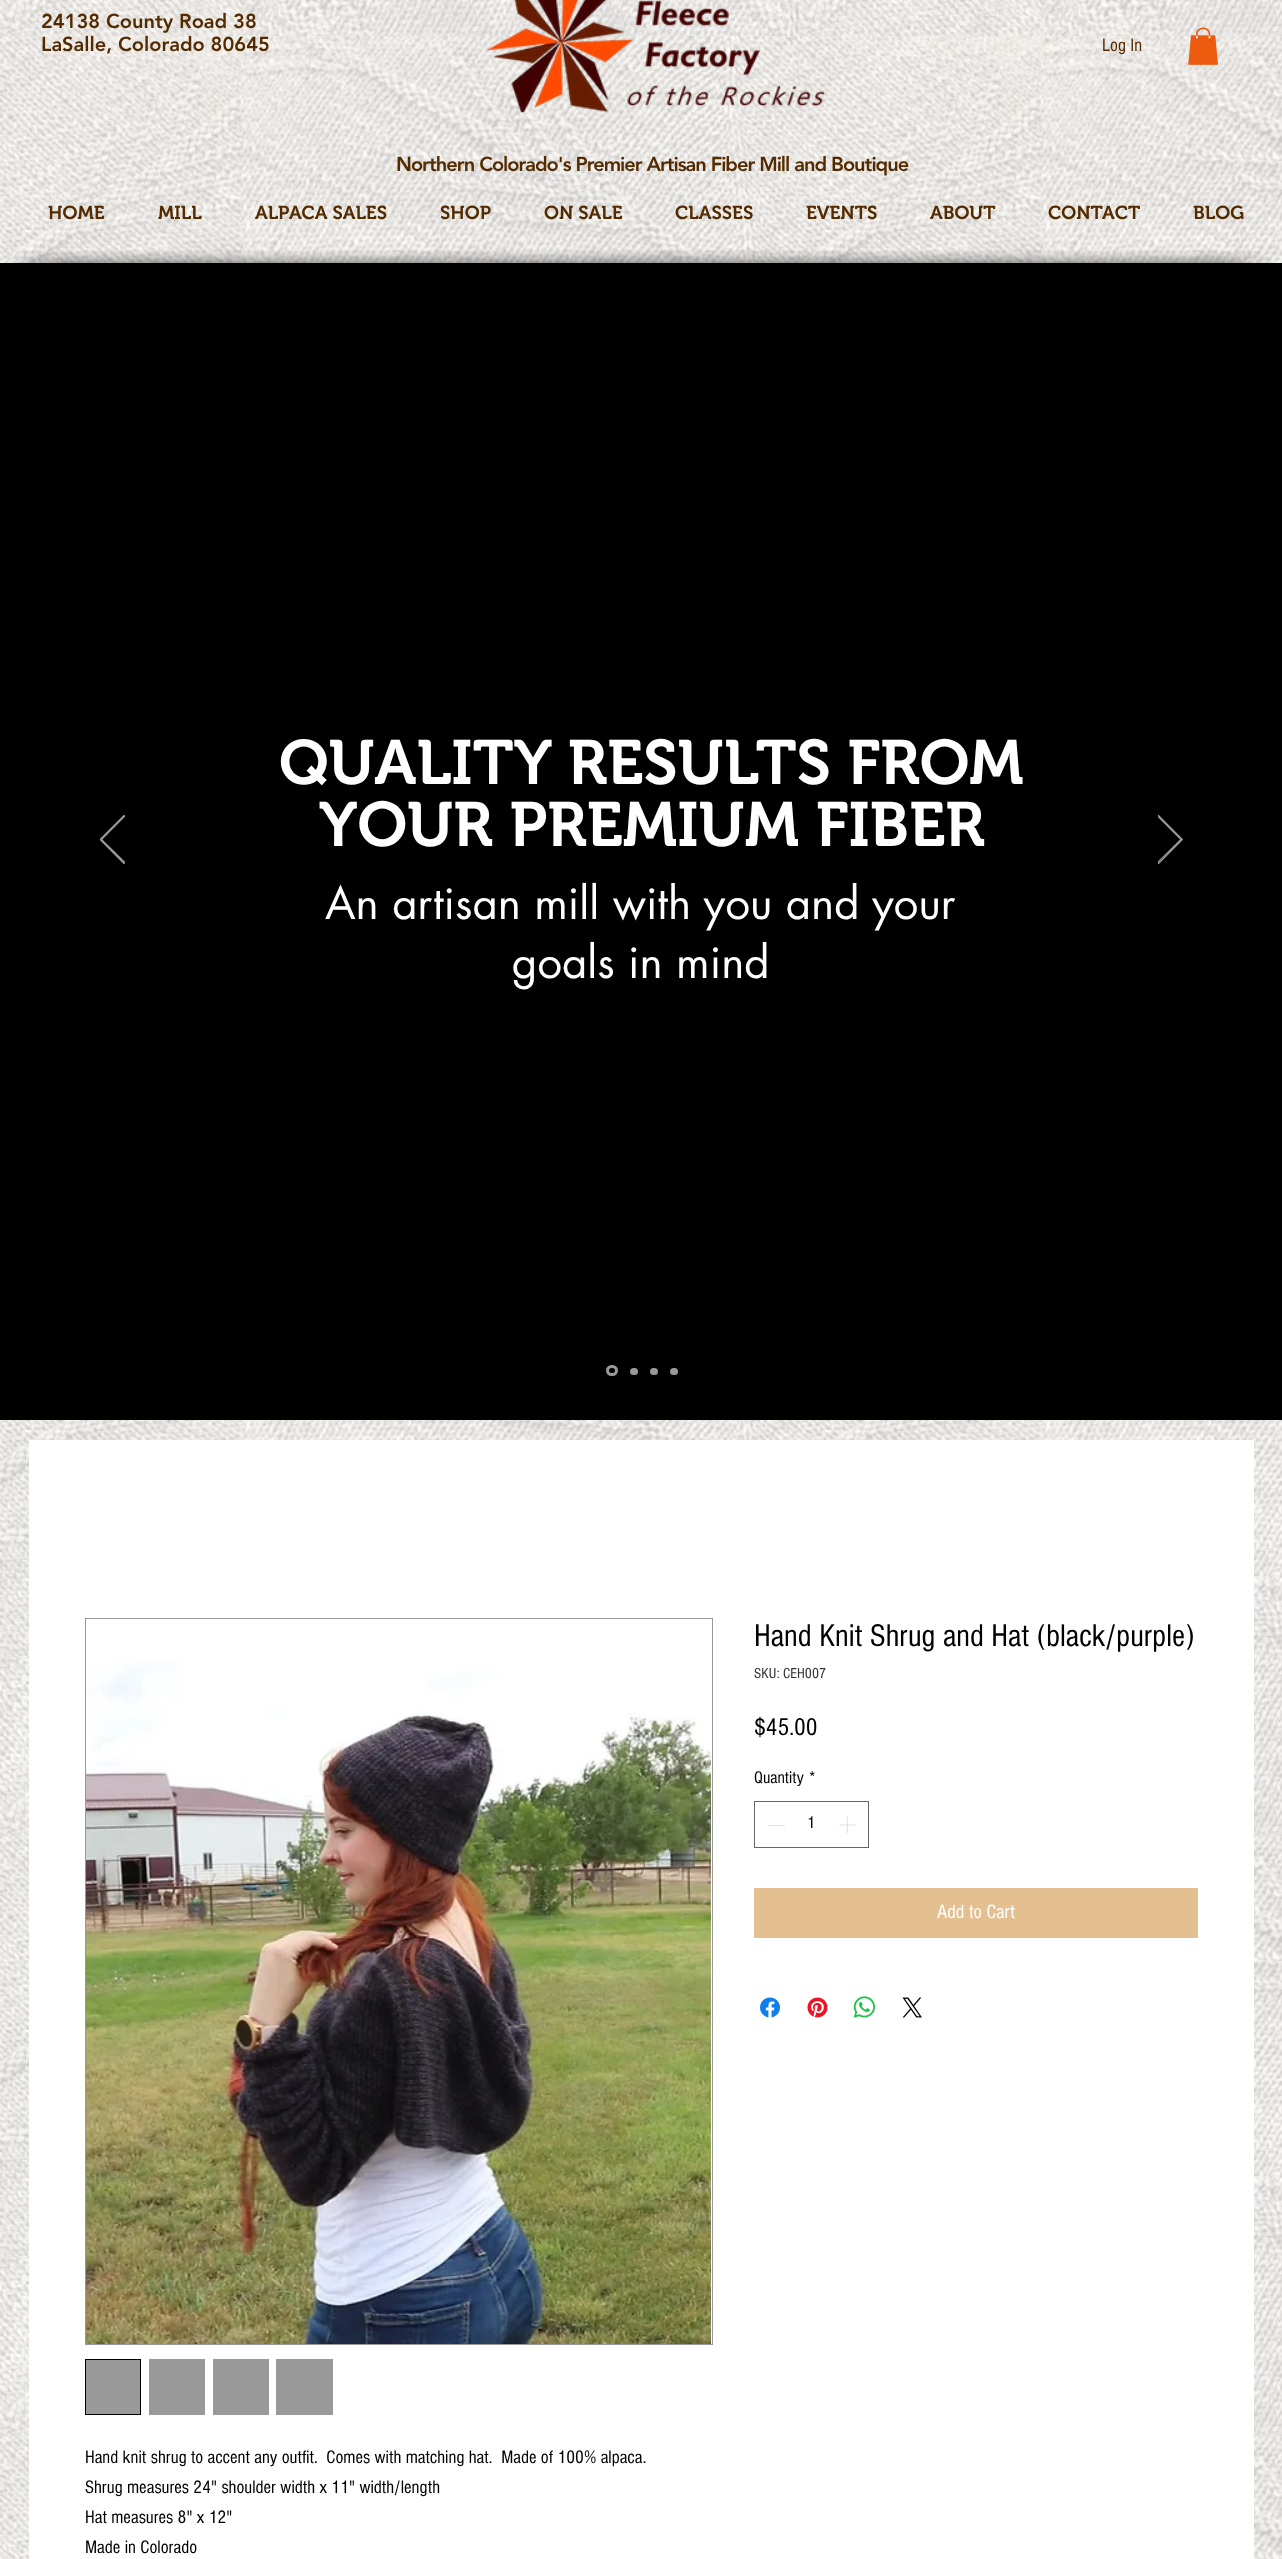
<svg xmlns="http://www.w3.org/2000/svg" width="1282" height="2559">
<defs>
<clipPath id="clip1"><rect x="100" y="815" width="25" height="49"/></clipPath>
<clipPath id="clip2"><rect x="1158" y="815" width="25" height="49"/></clipPath>
</defs>
<rect width="100%" height="100%" fill="#fff"/>
<image x="0" y="0" width="1282" height="2559" href="media/1.png"/>
<text x="41" y="28" style="font-family:'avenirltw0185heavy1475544';font-size:20px;font-weight:900;fill:#542b00">24138 County Road 38</text>
<text x="41" y="51" style="font-family:'avenirltw0185heavy1475544';font-size:20px;font-weight:900;fill:#542b00">LaSalle, Colorado 80645</text>
<image x="486" y="0" width="340" height="113" href="media/2.png"/>
<text x="1102" y="51" style="font-family:'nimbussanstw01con';font-size:18.75px;fill:#542b00">Log In</text>
<image x="1188" y="27" width="30" height="38" href="media/3.png"/>
<text x="396" y="171" style="font-family:'avenirltw0185heavy1475544';font-size:20px;font-weight:900;letter-spacing:-1px;fill:#542b00">Northern Colorado's Premier Artisan Fiber Mill and Boutique</text>
<text x="48" y="219" style="font-family:'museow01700';font-size:18.75px;font-weight:600;fill:#542b00">HOME</text>
<text x="158" y="219" style="font-family:'museow01700';font-size:18.75px;font-weight:600;fill:#542b00">MILL</text>
<text x="255" y="219" style="font-family:'museow01700';font-size:18.75px;font-weight:600;fill:#542b00">ALPACA SALES</text>
<text x="440" y="219" style="font-family:'museow01700';font-size:18.75px;font-weight:600;fill:#542b00">SHOP</text>
<text x="544" y="219" style="font-family:'museow01700';font-size:18.75px;font-weight:600;fill:#542b00">ON SALE</text>
<text x="675" y="219" style="font-family:'museow01700';font-size:18.75px;font-weight:600;fill:#542b00">CLASSES</text>
<text x="806" y="219" style="font-family:'museow01700';font-size:18.75px;font-weight:600;fill:#542b00">EVENTS</text>
<text x="930" y="219" style="font-family:'museow01700';font-size:18.75px;font-weight:600;fill:#542b00">ABOUT</text>
<text x="1048" y="219" style="font-family:'museow01700';font-size:18.75px;font-weight:600;fill:#542b00">CONTACT</text>
<text x="1193" y="219" style="font-family:'museow01700';font-size:18.75px;font-weight:600;fill:#542b00">BLOG</text>
<image x="56" y="250" width="1169" height="13" href="media/4.png"/>
<image x="5" y="250" width="52" height="13" href="media/5.png"/>
<image x="1225" y="250" width="51" height="13" href="media/6.png"/>
<rect y="263" width="1282" height="1157" fill="#000"/>
<g clip-path="url(#clip1)">
<path d="M124 863.5l-24-24l24-24l1 .5l-23.5 23.5l23.5 23z" fill="none" stroke="#999" stroke-width="1.2"/>
</g>
<text x="279" y="784" style="font-family:'museow01700';font-size:62.5px;font-weight:600;fill:#fff">QUALITY RESULTS FROM</text>
<text x="319" y="846" style="font-family:'museow01700';font-size:62.5px;font-weight:600;fill:#fff">YOUR PREMIUM FIBER</text>
<text x="325" y="919" style="font-family:futura;font-size:43.75px;fill:#fff">An artisan mill with you and your</text>
<text x="512" y="978" style="font-family:futura;font-size:43.75px;fill:#fff">goals in mind</text>
<g clip-path="url(#clip2)">
<path d="M1158.5 863.5l24-24l-24-24l-1 .5l23.5 23.5l-23.5 23z" fill="none" stroke="#999" stroke-width="1.2"/>
</g>
<rect x="607.5" y="1366.5" width="9" height="8" rx="4" fill="none" stroke="#999" stroke-width="3"/>
<rect x="630" y="1368" width="8" height="7" rx="3.5" fill="#999"/>
<rect x="650" y="1368" width="8" height="7" rx="3.5" fill="#999"/>
<rect x="670" y="1368" width="8" height="7" rx="3.5" fill="#999"/>
<rect x="29" y="1440" width="1225" height="1119" fill="#fff"/>
<text x="754" y="1646" style="font-family:'nimbussanstw01con';font-size:32.5px;fill:#000">Hand Knit Shrug and Hat (black/purple)</text>
<text x="754" y="1678" style="font-family:'nimbussanstw01con';font-size:15px;fill:#333">SKU: CEH007</text>
<text x="754" y="1735" style="font-family:'nimbussanstw01con';font-size:25px;fill:#000">$45.00</text>
<text x="754" y="1783" style="font-family:'nimbussanstw01con';font-size:17.5px;fill:#000">Quantity</text>
<text x="809" y="1783" style="font-family:'nimbussanstw01con';font-size:17.5px;fill:#000">*</text>
<rect x="754.5" y="1801.5" width="114" height="46" fill="none" stroke="#666"/>
<rect x="768" y="1825" width="17" height="1" fill="#e3e3e3"/>
<text x="807" y="1828" style="font-family:'nimbussanstw01con';font-size:17.5px;fill:#000">1</text>
<image x="839" y="1816" width="17" height="17" href="media/7.png"/>
<rect x="754" y="1888" width="444" height="50" fill="#e4bf8f"/>
<text x="937" y="1918" style="font-family:'nimbussanstw01con';font-size:20px;fill:#fff">Add to Cart</text>
<image x="760" y="1997" width="20" height="21" href="media/8.png"/>
<image x="807" y="1997" width="21" height="21" href="media/9.png"/>
<image x="853" y="1996" width="22" height="22" href="media/10.png"/>
<image x="902" y="1997" width="20" height="21" href="media/11.png"/>
<rect x="85.5" y="1618.5" width="627" height="726" fill="none" stroke="#999"/>
<image x="86" y="1659" width="625" height="685" href="media/12.png"/>
<rect x="85.5" y="2359.5" width="55" height="55" fill="#999" stroke="#000"/>
<rect x="149" y="2359" width="56" height="56" fill="#999"/>
<rect x="213" y="2359" width="56" height="56" fill="#999"/>
<rect x="276" y="2359" width="57" height="56" fill="#999"/>
<text x="85" y="2463" style="font-family:'nimbussanstw01con';font-size:18.75px;fill:#000" xml:space="preserve">Hand knit shrug to accent any outfit.  Comes with matching hat.  Made of 100% alpaca.</text>
<text x="85" y="2493" style="font-family:'nimbussanstw01con';font-size:18.75px;fill:#000">Shrug measures 24" shoulder width x 11" width/length</text>
<text x="85" y="2523" style="font-family:'nimbussanstw01con';font-size:18.75px;fill:#000">Hat measures 8" x 12"</text>
<text x="85" y="2553" style="font-family:'nimbussanstw01con';font-size:18.75px;fill:#000">Made in Colorado</text>
</svg>
